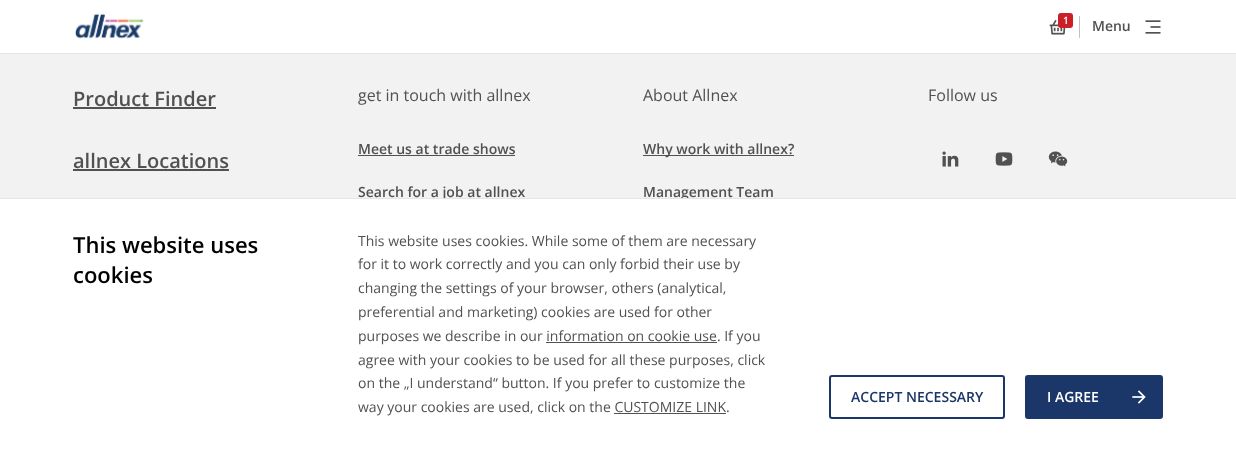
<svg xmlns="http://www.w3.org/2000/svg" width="1236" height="449">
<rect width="100%" height="100%" fill="#f2f2f2"/>
<rect width="1236" height="53" fill="#fff"/>
<rect y="53" width="1236" height="1" fill="#e5e5e5"/>
<image x="75" y="13" width="69" height="26" href="media/1.png"/>
<image x="1049" y="20" width="17" height="15" href="media/2.png"/>
<rect x="1058" y="13" width="15" height="15" rx="3" fill="#cc1e29"/>
<text x="1063" y="24" style="font-family:Open Sans;font-size:10px;font-weight:600;fill:#fff">1</text>
<rect x="1079" y="16" width="1" height="22" fill="#c0c0c0"/>
<text x="1092" y="31" style="font-family:Open Sans;font-size:14px;font-weight:600;fill:#525151">Menu</text>
<image x="1145" y="20" width="16" height="14" href="media/3.png"/>
<text x="73" y="106" style="font-family:Open Sans;font-size:20px;font-weight:600;fill:#525151">Product Finder</text>
<rect x="73" y="107" width="143" height="2" fill="#525151"/>
<text x="73" y="168" style="font-family:Open Sans;font-size:20px;font-weight:600;fill:#525151">allnex Locations</text>
<rect x="73" y="169" width="156" height="2" fill="#525151"/>
<text x="358" y="101" style="font-family:Open Sans;font-size:16px;fill:#525151">get in touch with allnex</text>
<text x="358" y="154" style="font-family:Open Sans;font-size:14px;font-weight:600;fill:#525151">Meet us at trade shows</text>
<rect x="358" y="155" width="157" height="1" fill="#525151"/>
<text x="358" y="197" style="font-family:Open Sans;font-size:14px;font-weight:600;fill:#525151">Search for a job at allnex</text>
<text x="643" y="101" style="font-family:Open Sans;font-size:16px;fill:#525151">About Allnex</text>
<rect x="643" y="155" width="151" height="1" fill="#525151"/>
<text x="643" y="154" style="font-family:Open Sans;font-size:14px;font-weight:600;fill:#525151">Why work with allnex?</text>
<text x="643" y="197" style="font-family:Open Sans;font-size:14px;font-weight:600;fill:#525151">Management Team</text>
<text x="928" y="101" style="font-family:Open Sans;font-size:16px;fill:#525151">Follow us</text>
<image x="942" y="151" width="17" height="16" href="media/4.png"/>
<image x="995" y="152" width="18" height="14" href="media/5.png"/>
<image x="1048" y="151" width="20" height="16" href="media/6.png"/>
<rect y="199" width="1236" height="250" fill="#fff"/>
<rect y="198" width="1236" height="1" fill="#e5e5e5"/>
<text x="73" y="253" style="font-family:Open Sans;font-size:22px;font-weight:600;fill:#000">This website uses</text>
<text x="73" y="283" style="font-family:Open Sans;font-size:22px;font-weight:600;fill:#000">cookies</text>
<text x="358" y="246" style="font-family:Open Sans;font-size:14px;fill:#525151">This website uses cookies. While some of them are necessary</text>
<text x="358" y="269" style="font-family:Open Sans;font-size:14px;fill:#525151">for it to work correctly and you can only forbid their use by</text>
<text x="358" y="293" style="font-family:Open Sans;font-size:14px;fill:#525151">changing the settings of your browser, others (analytical,</text>
<text x="358" y="317" style="font-family:Open Sans;font-size:14px;fill:#525151">preferential and marketing) cookies are used for other</text>
<text x="358" y="341" style="font-family:Open Sans;font-size:14px;fill:#525151">purposes we describe in our information on cookie use. If you</text>
<rect x="546" y="342" width="171" height="1" fill="#525151"/>
<text x="358" y="365" style="font-family:Open Sans;font-size:14px;fill:#525151">agree with your cookies to be used for all these purposes, click</text>
<text x="358" y="388" style="font-family:Open Sans;font-size:14px;fill:#525151">on the „I understand“ button. If you prefer to customize the</text>
<text x="358" y="412" style="font-family:Open Sans;font-size:14px;fill:#525151">way your cookies are used, click on the CUSTOMIZE LINK.</text>
<rect x="614" y="413" width="112" height="1" fill="#525151"/>
<rect x="830" y="376" width="174" height="42" rx="2" fill="none" stroke="#1b3668" stroke-width="2"/>
<text x="851" y="402" style="font-family:Open Sans;font-size:14px;font-weight:600;fill:#1b3668">ACCEPT NECESSARY</text>
<rect x="1026" y="376" width="136" height="42" rx="2" fill="#1b3668" stroke="#1b3668" stroke-width="2"/>
<text x="1047" y="402" style="font-family:Open Sans;font-size:14px;font-weight:600;fill:#fff">I AGREE</text>
<image x="1132" y="390" width="14" height="14" href="media/7.png"/>
</svg>
